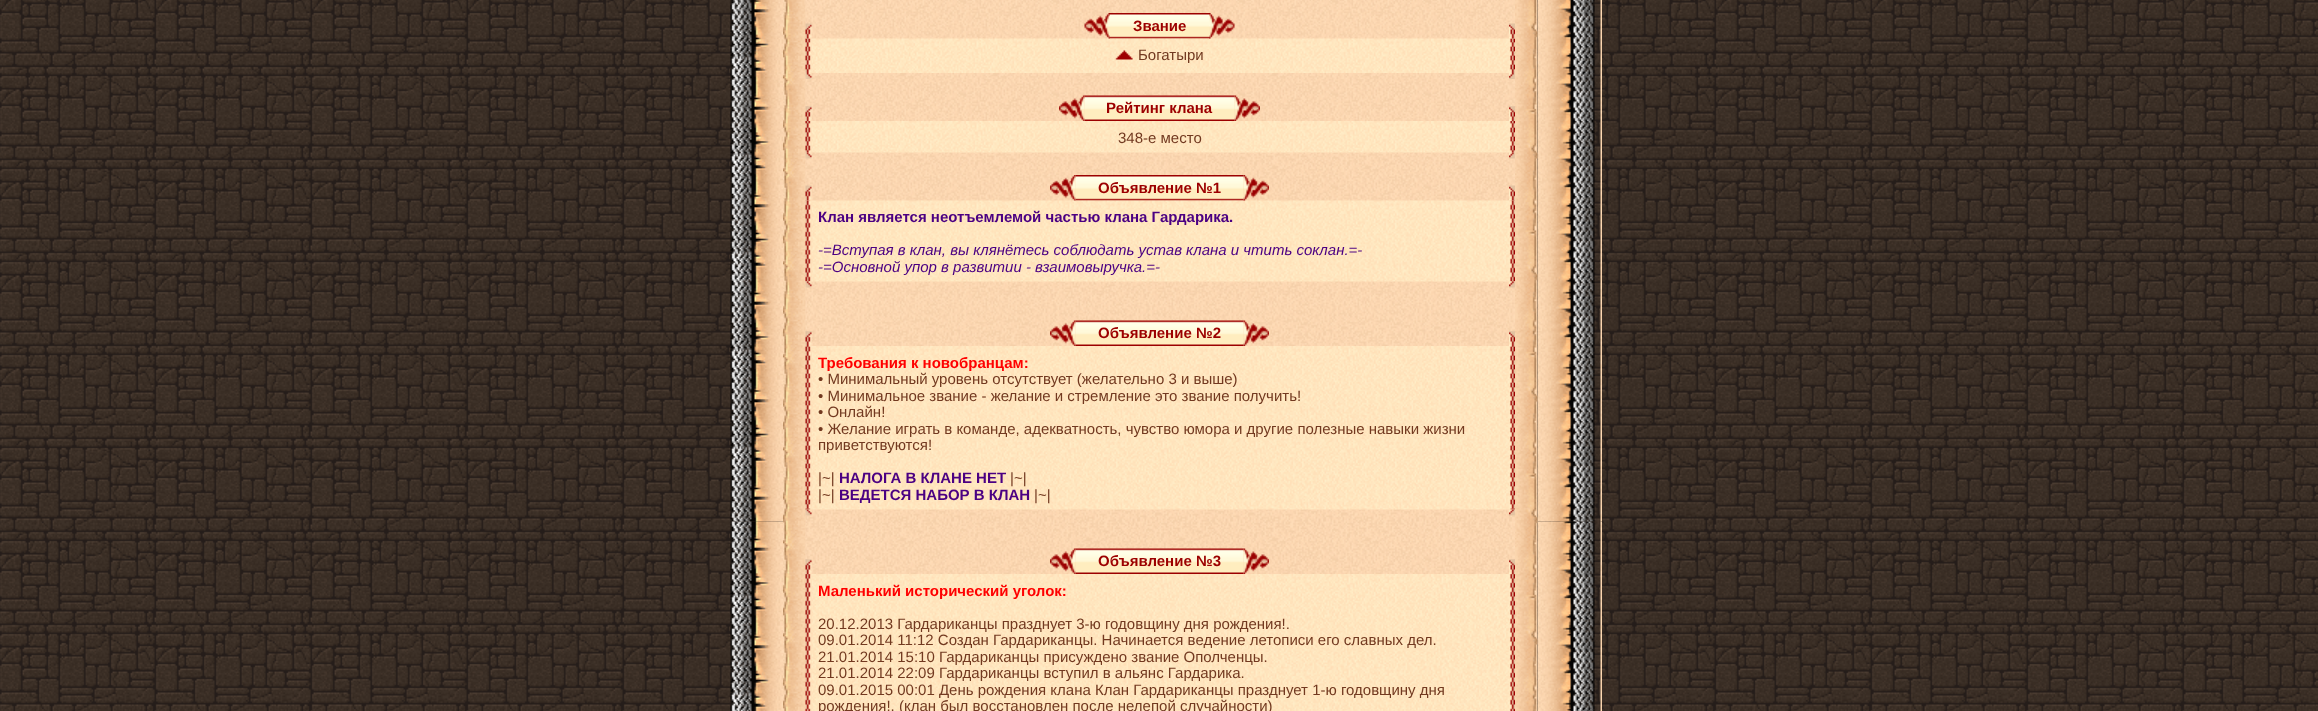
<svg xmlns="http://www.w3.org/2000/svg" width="2318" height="711">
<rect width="100%" height="100%" fill="#fff"/>
<image x="0" y="0" width="2318" height="711" href="media/1.png"/>
<image x="730" y="0" width="53" height="522" href="media/2.png"/>
<image x="783" y="0" width="755" height="711" href="media/3.png"/>
<image x="783" y="0" width="23" height="711" href="media/4.png"/>
<image x="805" y="0" width="710" height="711" href="media/5.png"/>
<image x="805" y="38" width="7" height="35" href="media/11.png"/>
<image x="1110" y="13" width="99" height="26" href="media/8.png"/>
<image x="811" y="38" width="698" height="35" href="media/12.png"/>
<image x="805" y="23" width="7" height="16" href="media/6.png"/>
<image x="1084" y="13" width="26" height="26" href="media/7.png"/>
<text x="1133" y="31" style="font-family:Liberation Sans;font-size:15px;font-weight:bold;fill:#9c0000">Звание</text>
<image x="1209" y="13" width="26" height="26" href="media/9.png"/>
<image x="1509" y="38" width="6" height="35" href="media/14.png"/>
<image x="1509" y="23" width="6" height="16" href="media/10.png"/>
<image x="1115" y="50" width="18" height="10" href="media/13.png"/>
<text x="1138" y="60" style="font-family:Liberation Sans;font-size:15px;fill:#723920">Богатыри</text>
<image x="805" y="73" width="7" height="6" href="media/15.png"/>
<image x="1509" y="73" width="6" height="6" href="media/16.png"/>
<image x="805" y="106" width="7" height="15" href="media/17.png"/>
<image x="1084" y="95" width="151" height="26" href="media/19.png"/>
<image x="1059" y="95" width="26" height="26" href="media/18.png"/>
<text x="1106" y="113" style="font-family:Liberation Sans;font-size:15px;font-weight:bold;fill:#9c0000">Рейтинг клана</text>
<image x="1234" y="95" width="26" height="26" href="media/20.png"/>
<image x="1509" y="106" width="6" height="15" href="media/21.png"/>
<image x="805" y="121" width="7" height="32" href="media/22.png"/>
<image x="811" y="121" width="698" height="32" href="media/23.png"/>
<text x="1118" y="143" style="font-family:Liberation Sans;font-size:15px;fill:#723920">348-е место</text>
<image x="1509" y="121" width="6" height="32" href="media/24.png"/>
<image x="805" y="152" width="7" height="7" href="media/25.png"/>
<image x="1509" y="152" width="6" height="7" href="media/26.png"/>
<image x="805" y="200" width="7" height="82" href="media/32.png"/>
<image x="1075" y="175" width="169" height="26" href="media/29.png"/>
<image x="811" y="200" width="698" height="82" href="media/33.png"/>
<image x="805" y="185" width="7" height="16" href="media/27.png"/>
<image x="1050" y="175" width="26" height="26" href="media/28.png"/>
<text x="1098" y="193" style="font-family:Liberation Sans;font-size:15px;font-weight:bold;fill:#9c0000">Объявление №1</text>
<image x="1243" y="175" width="26" height="26" href="media/30.png"/>
<image x="1509" y="200" width="6" height="82" href="media/34.png"/>
<image x="1509" y="185" width="6" height="16" href="media/31.png"/>
<text x="818" y="222" style="font-family:Liberation Sans;font-size:15px;font-weight:bold;fill:#4b0082">Клан является неотъемлемой частью клана Гардарика.</text>
<text x="818" y="255" style="font-family:Liberation Sans;font-size:15px;font-style:italic;fill:#4b0082">-=Вступая в клан, вы клянётесь соблюдать устав клана и чтить соклан.=-</text>
<text x="818" y="272" style="font-family:Liberation Sans;font-size:15px;font-style:italic;fill:#4b0082">-=Основной упор в развитии - взаимовыручка.=-</text>
<image x="805" y="281" width="7" height="7" href="media/35.png"/>
<image x="1509" y="281" width="6" height="7" href="media/36.png"/>
<image x="805" y="331" width="7" height="15" href="media/37.png"/>
<image x="1075" y="320" width="169" height="26" href="media/39.png"/>
<image x="1050" y="320" width="26" height="26" href="media/38.png"/>
<text x="1098" y="338" style="font-family:Liberation Sans;font-size:15px;font-weight:bold;fill:#9c0000">Объявление №2</text>
<image x="1243" y="320" width="26" height="26" href="media/40.png"/>
<image x="1509" y="331" width="6" height="15" href="media/41.png"/>
<image x="805" y="346" width="7" height="164" href="media/42.png"/>
<image x="811" y="346" width="698" height="164" href="media/43.png"/>
<text x="818" y="368" style="font-family:Liberation Sans;font-size:15px;font-weight:bold;fill:#f00">Требования к новобранцам:</text>
<text x="818" y="384" style="font-family:Liberation Sans;font-size:15px;fill:#723920">• Минимальный уровень отсутствует (желательно 3 и выше)</text>
<text x="818" y="401" style="font-family:Liberation Sans;font-size:15px;fill:#723920">• Минимальное звание - желание и стремление это звание получить!</text>
<text x="818" y="417" style="font-family:Liberation Sans;font-size:15px;fill:#723920">• Онлайн!</text>
<text x="818" y="434" style="font-family:Liberation Sans;font-size:15px;fill:#723920">• Желание играть в команде, адекватность, чувство юмора и другие полезные навыки жизни</text>
<text x="818" y="450" style="font-family:Liberation Sans;font-size:15px;fill:#723920">приветствуются!</text>
<text x="818" y="483" style="font-family:Liberation Sans;font-size:15px;fill:#723920">|~|</text>
<text x="839" y="483" style="font-family:Liberation Sans;font-size:15px;font-weight:bold;fill:#4b0082">НАЛОГА В КЛАНЕ НЕТ</text>
<text x="1010" y="483" style="font-family:Liberation Sans;font-size:15px;fill:#723920">|~|</text>
<text x="818" y="500" style="font-family:Liberation Sans;font-size:15px;fill:#723920">|~|</text>
<text x="839" y="500" style="font-family:Liberation Sans;font-size:15px;font-weight:bold;fill:#4b0082">ВЕДЕТСЯ НАБОР В КЛАН</text>
<text x="1034" y="500" style="font-family:Liberation Sans;font-size:15px;fill:#723920">|~|</text>
<image x="1509" y="346" width="6" height="164" href="media/44.png"/>
<image x="805" y="509" width="7" height="7" href="media/45.png"/>
<image x="1509" y="509" width="6" height="7" href="media/46.png"/>
<image x="805" y="559" width="7" height="15" href="media/47.png"/>
<image x="1075" y="548" width="169" height="26" href="media/49.png"/>
<image x="1050" y="548" width="26" height="26" href="media/48.png"/>
<text x="1098" y="566" style="font-family:Liberation Sans;font-size:15px;font-weight:bold;fill:#9c0000">Объявление №3</text>
<image x="1243" y="548" width="26" height="26" href="media/50.png"/>
<image x="1509" y="559" width="6" height="15" href="media/51.png"/>
<image x="805" y="574" width="7" height="137" href="media/52.png"/>
<image x="811" y="574" width="698" height="137" href="media/53.png"/>
<text x="818" y="596" style="font-family:Liberation Sans;font-size:15px;font-weight:bold;fill:#f00">Маленький исторический уголок:</text>
<text x="818" y="629" style="font-family:Liberation Sans;font-size:15px;fill:#723920">20.12.2013 Гардариканцы празднует 3-ю годовщину дня рождения!.</text>
<text x="818" y="645" style="font-family:Liberation Sans;font-size:15px;fill:#723920">09.01.2014 11:12 Создан Гардариканцы. Начинается ведение летописи его славных дел.</text>
<text x="818" y="662" style="font-family:Liberation Sans;font-size:15px;fill:#723920">21.01.2014 15:10 Гардариканцы присуждено звание Ополченцы.</text>
<text x="818" y="678" style="font-family:Liberation Sans;font-size:15px;fill:#723920">21.01.2014 22:09 Гардариканцы вступил в альянс Гардарика.</text>
<text x="818" y="695" style="font-family:Liberation Sans;font-size:15px;fill:#723920">09.01.2015 00:01 День рождения клана Клан Гардариканцы празднует 1-ю годовщину дня</text>
<text x="818" y="711" style="font-family:Liberation Sans;font-size:15px;fill:#723920">рождения!. (клан был восстановлен после нелепой случайности)</text>
<image x="1509" y="574" width="6" height="137" href="media/54.png"/>
<image x="1515" y="0" width="23" height="711" href="media/55.png"/>
<image x="1537" y="0" width="65" height="522" href="media/56.png"/>
<image x="730" y="521" width="53" height="190" href="media/57.png"/>
<image x="1537" y="521" width="65" height="190" href="media/58.png"/>
</svg>
